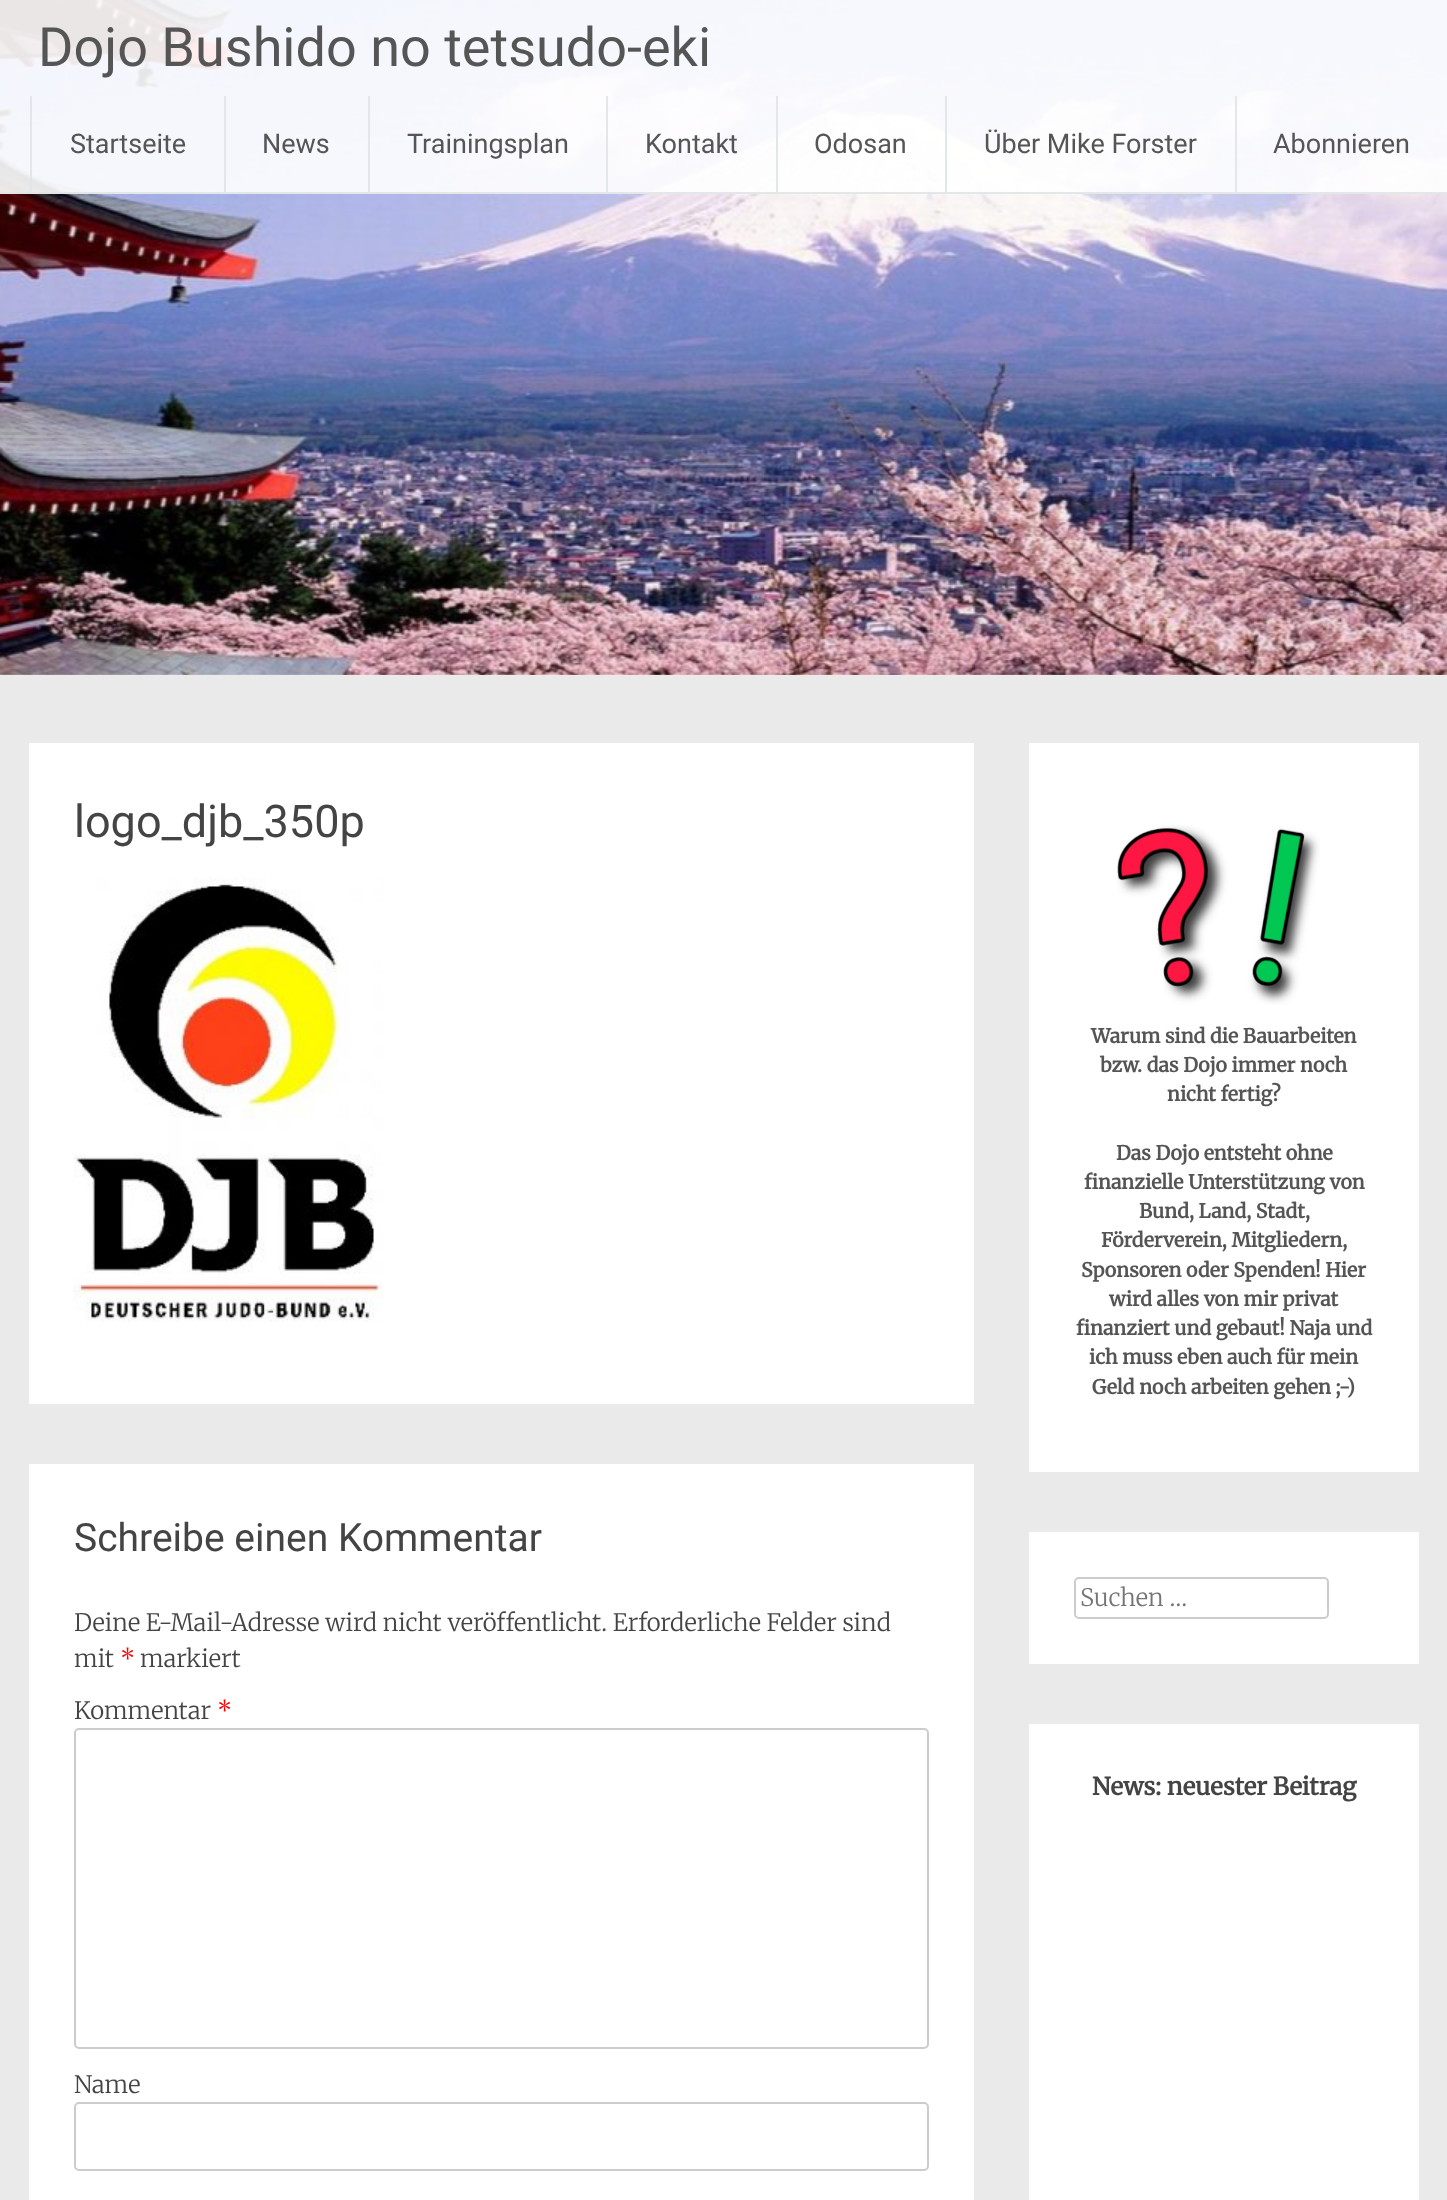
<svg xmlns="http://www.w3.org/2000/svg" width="1447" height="2200">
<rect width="100%" height="100%" fill="#fff"/>
<image x="0" y="0" width="1447" height="675" href="media/1.png"/>
<rect width="1447" height="194" fill="#ffffffe6"/>
<rect y="192" width="1447" height="2" fill="#e1e4e6e6"/>
<text x="38" y="66" style="font-family:Roboto;font-size:54px;fill:#555">Dojo Bushido no tetsudo-eki</text>
<rect x="30" y="96" width="2" height="96" fill="#e1e4e6e6"/>
<text x="70" y="153" style="font-family:Roboto;font-size:27px;fill:#555">Startseite</text>
<rect x="224" y="96" width="2" height="96" fill="#e3e6e8"/>
<text x="262" y="153" style="font-family:Roboto;font-size:27px;fill:#555">News</text>
<rect x="368" y="96" width="2" height="96" fill="#e3e6e8"/>
<text x="407" y="153" style="font-family:Roboto;font-size:27px;fill:#555">Trainingsplan</text>
<rect x="606" y="96" width="2" height="96" fill="#e1e4e6e6"/>
<text x="645" y="153" style="font-family:Roboto;font-size:27px;fill:#555">Kontakt</text>
<rect x="776" y="96" width="2" height="96" fill="#e1e4e6e6"/>
<text x="814" y="153" style="font-family:Roboto;font-size:27px;fill:#555">Odosan</text>
<rect x="945" y="96" width="2" height="96" fill="#e1e4e6e6"/>
<text x="984" y="153" style="font-family:Roboto;font-size:27px;fill:#555">Über Mike Forster</text>
<rect x="1235" y="96" width="2" height="96" fill="#e1e4e6e6"/>
<text x="1273" y="153" style="font-family:Roboto;font-size:27px;fill:#555">Abonnieren</text>
<rect y="675" width="1447" height="1525" fill="#eaeaea"/>
<rect x="29" y="743" width="945" height="661" fill="#fff"/>
<text x="74" y="837" style="font-family:Roboto;font-size:45px;fill:#444">logo_djb_350p</text>
<image x="73" y="877" width="310" height="445" href="media/2.png"/>
<rect x="29" y="1464" width="945" height="736" fill="#fff"/>
<text x="74" y="1551" style="font-family:Roboto;font-size:39px;fill:#444">Schreibe einen Kommentar</text>
<text x="74" y="1631" style="font-family:Merriweather;font-size:24px;font-weight:300;fill:#444">Deine E-Mail-Adresse wird nicht veröffentlicht. Erforderliche Felder sind</text>
<text x="74" y="1667" style="font-family:Merriweather;font-size:24px;font-weight:300;fill:#444">mit</text>
<text x="120" y="1667" style="font-family:Merriweather;font-size:24px;font-weight:300;fill:#f00">*</text>
<text x="140" y="1667" style="font-family:Merriweather;font-size:24px;font-weight:300;fill:#444">markiert</text>
<text x="74" y="1719" style="font-family:Merriweather;font-size:24px;font-weight:300;fill:#444">Kommentar</text>
<text x="217" y="1719" style="font-family:Merriweather;font-size:24px;font-weight:300;fill:#f00">*</text>
<rect x="75" y="1729" width="853" height="319" rx="4" fill="none" stroke="#ccc" stroke-width="2"/>
<text x="74" y="2093" style="font-family:Merriweather;font-size:24px;font-weight:300;fill:#444">Name</text>
<rect x="75" y="2103" width="853" height="67" rx="4" fill="none" stroke="#ccc" stroke-width="2"/>
<rect x="1029" y="743" width="390" height="729" fill="#fff"/>
<image x="1116" y="825" width="204" height="180" href="media/3.png"/>
<text x="1091" y="1043" style="font-family:Merriweather;font-size:19.5px;font-weight:bold;fill:#555">Warum sind die Bauarbeiten</text>
<text x="1100" y="1072" style="font-family:Merriweather;font-size:19.5px;font-weight:bold;fill:#555">bzw. das Dojo immer noch</text>
<text x="1167" y="1101" style="font-family:Merriweather;font-size:19.5px;font-weight:bold;fill:#555">nicht fertig?</text>
<text x="1116" y="1160" style="font-family:Merriweather;font-size:19.5px;font-weight:bold;fill:#555">Das Dojo entsteht ohne</text>
<text x="1084" y="1189" style="font-family:Merriweather;font-size:19.5px;font-weight:bold;fill:#555">finanzielle Unterstützung von</text>
<text x="1139" y="1218" style="font-family:Merriweather;font-size:19.5px;font-weight:bold;fill:#555">Bund, Land, Stadt,</text>
<text x="1101" y="1247" style="font-family:Merriweather;font-size:19.5px;font-weight:bold;fill:#555">Förderverein, Mitgliedern,</text>
<text x="1081" y="1277" style="font-family:Merriweather;font-size:19.5px;font-weight:bold;fill:#555">Sponsoren oder Spenden! Hier</text>
<text x="1109" y="1306" style="font-family:Merriweather;font-size:19.5px;font-weight:bold;fill:#555">wird alles von mir privat</text>
<text x="1076" y="1335" style="font-family:Merriweather;font-size:19.5px;font-weight:bold;fill:#555">finanziert und gebaut! Naja und</text>
<text x="1089" y="1364" style="font-family:Merriweather;font-size:19.5px;font-weight:bold;fill:#555">ich muss eben auch für mein</text>
<text x="1092" y="1394" style="font-family:Merriweather;font-size:19.5px;font-weight:bold;fill:#555">Geld noch arbeiten gehen ;-)</text>
<rect x="1029" y="1532" width="390" height="132" fill="#fff"/>
<rect x="1075" y="1578" width="253" height="40" rx="4" fill="none" stroke="#ccc" stroke-width="2"/>
<text x="1080" y="1606" style="font-family:Merriweather;font-size:24px;font-weight:300;fill:#757575">Suchen …</text>
<rect x="1029" y="1724" width="390" height="476" fill="#fff"/>
<text x="1092" y="1795" style="font-family:Merriweather;font-size:24px;font-weight:bold;fill:#444">News: neuester Beitrag</text>
</svg>
